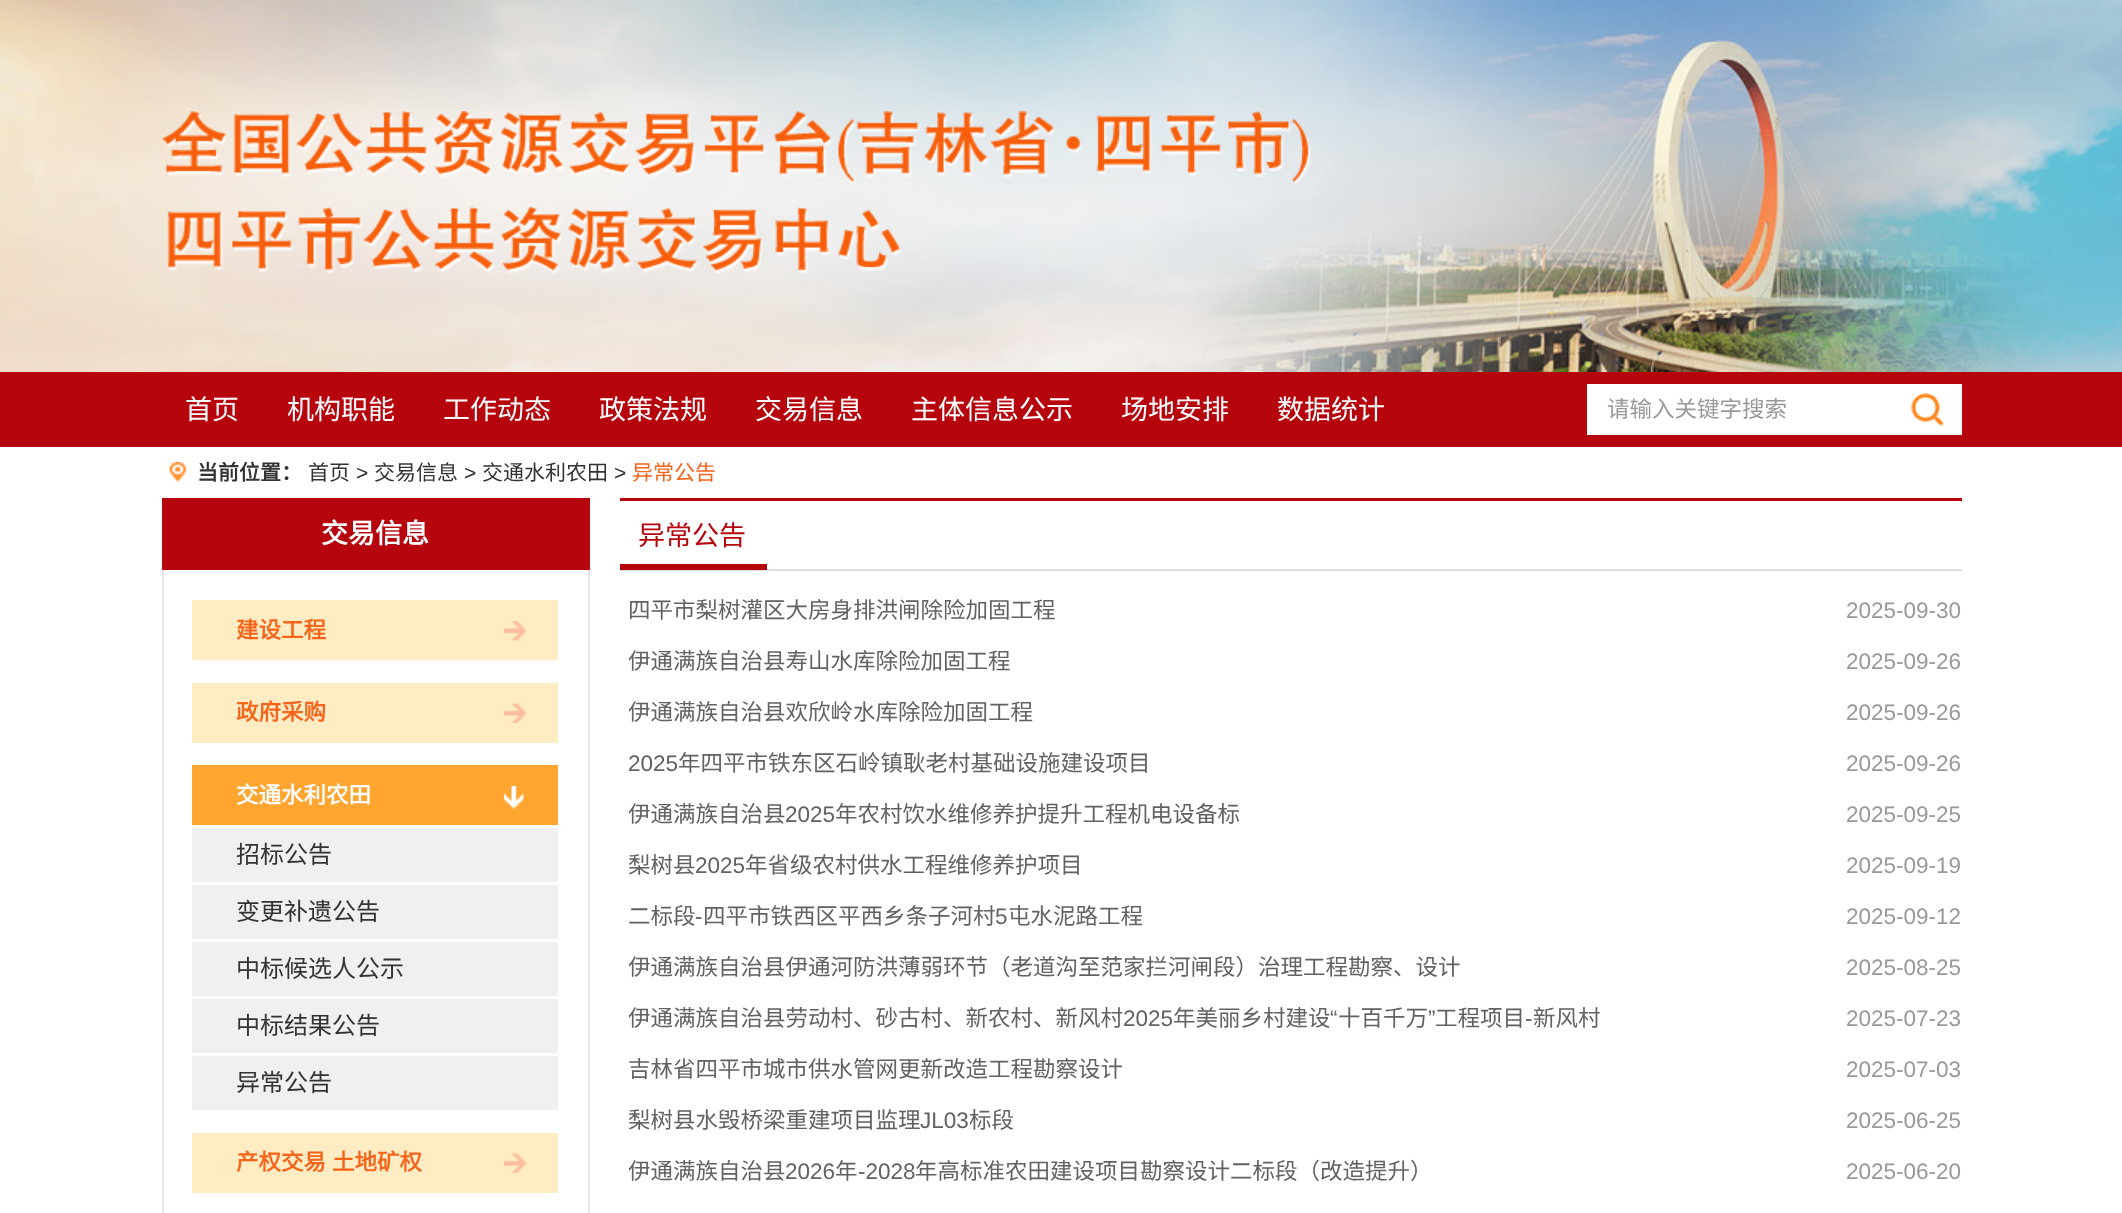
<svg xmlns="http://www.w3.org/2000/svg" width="2122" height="1213">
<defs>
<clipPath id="clip1"><rect x="629" y="636" width="1033" height="51"/></clipPath>
<clipPath id="clip2"><rect x="629" y="687" width="1033" height="51"/></clipPath>
<clipPath id="clip3"><rect x="629" y="789" width="1033" height="51"/></clipPath>
<clipPath id="clip4"><rect x="629" y="840" width="1033" height="51"/></clipPath>
<clipPath id="clip5"><rect x="629" y="942" width="1033" height="51"/></clipPath>
<clipPath id="clip6"><rect x="629" y="993" width="1033" height="51"/></clipPath>
<clipPath id="clip7"><rect x="629" y="1095" width="1033" height="51"/></clipPath>
<clipPath id="clip8"><rect x="629" y="1146" width="1033" height="51"/></clipPath>
</defs>
<rect width="100%" height="100%" fill="#fff"/>
<image x="0" y="0" width="2122" height="372" href="media/1.png"/>
<image x="162" y="111" width="1149" height="163" href="media/2.png"/>
<rect y="372" width="2122" height="75" fill="#b6050d"/>
<text x="185" y="419" style="font-family:Noto Sans CJK SC;font-size:27px;fill:#fff">首页</text>
<text x="287" y="419" style="font-family:Noto Sans CJK SC;font-size:27px;fill:#fff">机构职能</text>
<text x="443" y="419" style="font-family:Noto Sans CJK SC;font-size:27px;fill:#fff">工作动态</text>
<text x="599" y="419" style="font-family:Noto Sans CJK SC;font-size:27px;fill:#fff">政策法规</text>
<text x="755" y="419" style="font-family:Noto Sans CJK SC;font-size:27px;fill:#fff">交易信息</text>
<text x="911" y="419" style="font-family:Noto Sans CJK SC;font-size:27px;fill:#fff">主体信息公示</text>
<text x="1121" y="419" style="font-family:Noto Sans CJK SC;font-size:27px;fill:#fff">场地安排</text>
<text x="1277" y="419" style="font-family:Noto Sans CJK SC;font-size:27px;fill:#fff">数据统计</text>
<rect x="1587" y="384" width="375" height="51" fill="#fff"/>
<text x="1607" y="417" style="font-family:Noto Sans CJK SC;font-size:22.5px;fill:#999">请输入关键字搜索</text>
<image x="1911" y="393" width="33" height="33" href="media/3.png"/>
<image x="169" y="462" width="17" height="20" href="media/4.png"/>
<text x="197" y="480" style="font-family:Noto Sans CJK SC;font-size:21px;font-weight:bold;fill:#333">当前位置：</text>
<text x="308" y="480" style="font-family:Noto Sans CJK SC;font-size:21px;fill:#333">首页</text>
<text x="356" y="480" style="font-family:Liberation Sans;font-size:21px;fill:#333">&gt;</text>
<text x="374" y="480" style="font-family:Noto Sans CJK SC;font-size:21px;fill:#333">交易信息</text>
<text x="464" y="480" style="font-family:Liberation Sans;font-size:21px;fill:#333">&gt;</text>
<text x="482" y="480" style="font-family:Noto Sans CJK SC;font-size:21px;fill:#333">交通水利农田</text>
<text x="614" y="480" style="font-family:Liberation Sans;font-size:21px;fill:#333">&gt;</text>
<text x="632" y="480" style="font-family:Noto Sans CJK SC;font-size:21px;fill:#f6631b">异常公告</text>
<rect x="162" y="498" width="428" height="72" fill="#b6050d"/>
<text x="321" y="543" style="font-family:Noto Sans CJK SC;font-size:27px;font-weight:bold;fill:#fff">交易信息</text>
<rect x="588" y="570" width="2" height="643" fill="#e5e5e5"/>
<rect x="162" y="570" width="2" height="643" fill="#e5e5e5"/>
<rect x="192" y="600" width="366" height="60" fill="#ffecc2"/>
<image x="504" y="621" width="23" height="20" href="media/5.png"/>
<text x="236" y="638" style="font-family:Noto Sans CJK SC;font-size:22.5px;font-weight:bold;fill:#f6631b">建设工程</text>
<rect x="192" y="683" width="366" height="60" fill="#ffecc2"/>
<image x="504" y="703" width="23" height="20" href="media/6.png"/>
<text x="236" y="720" style="font-family:Noto Sans CJK SC;font-size:22.5px;font-weight:bold;fill:#f6631b">政府采购</text>
<rect x="192" y="765" width="366" height="60" fill="#ffa530"/>
<image x="504" y="786" width="20" height="23" href="media/7.png"/>
<text x="236" y="803" style="font-family:Noto Sans CJK SC;font-size:22.5px;font-weight:bold;fill:#fff">交通水利农田</text>
<rect x="192" y="828" width="366" height="54" fill="#f0f0f0"/>
<text x="236" y="863" style="font-family:Noto Sans CJK SC;font-size:24px;fill:#333">招标公告</text>
<rect x="192" y="885" width="366" height="54" fill="#f0f0f0"/>
<text x="236" y="920" style="font-family:Noto Sans CJK SC;font-size:24px;fill:#333">变更补遗公告</text>
<rect x="192" y="942" width="366" height="54" fill="#f0f0f0"/>
<text x="236" y="977" style="font-family:Noto Sans CJK SC;font-size:24px;fill:#333">中标候选人公示</text>
<rect x="192" y="999" width="366" height="54" fill="#f0f0f0"/>
<text x="236" y="1034" style="font-family:Noto Sans CJK SC;font-size:24px;fill:#333">中标结果公告</text>
<rect x="192" y="1056" width="366" height="54" fill="#f0f0f0"/>
<text x="236" y="1091" style="font-family:Noto Sans CJK SC;font-size:24px;fill:#333">异常公告</text>
<rect x="192" y="1133" width="366" height="60" fill="#ffecc2"/>
<image x="504" y="1153" width="23" height="20" href="media/6.png"/>
<text x="236" y="1170" word-spacing="1" style="font-family:Noto Sans CJK SC;font-size:22.5px;font-weight:bold;fill:#f6631b">产权交易 土地矿权</text>
<rect x="620" y="498" width="1342" height="3" fill="#b6050d"/>
<rect x="620" y="569" width="1342" height="2" fill="#ddd"/>
<rect x="620" y="564" width="147" height="6" fill="#b6050d"/>
<text x="638" y="545" style="font-family:Noto Sans CJK SC;font-size:27px;fill:#b6050d">异常公告</text>
<text x="628" y="618" style="font-family:Noto Sans CJK SC;font-size:22.5px;fill:#626262">四平市梨树灌区大房身排洪闸除险加固工程</text>
<text x="1846" y="618" style="font-family:Liberation Sans;font-size:22.5px;fill:#999">2025-09-30</text>
<g clip-path="url(#clip1)">
<text x="628" y="669" style="font-family:Noto Sans CJK SC;font-size:22.5px;fill:#626262">伊通满族自治县寿山水库除险加固工程</text>
</g>
<text x="1846" y="669" style="font-family:Liberation Sans;font-size:22.5px;fill:#999">2025-09-26</text>
<g clip-path="url(#clip2)">
<text x="628" y="720" style="font-family:Noto Sans CJK SC;font-size:22.5px;fill:#626262">伊通满族自治县欢欣岭水库除险加固工程</text>
</g>
<text x="1846" y="720" style="font-family:Liberation Sans;font-size:22.5px;fill:#999">2025-09-26</text>
<text x="628" y="771" style="font-family:Liberation Sans;font-size:22.5px;fill:#626262">2025</text>
<text x="678" y="771" style="font-family:Noto Sans CJK SC;font-size:22.5px;fill:#626262">年四平市铁东区石岭镇耿老村基础设施建设项目</text>
<text x="1846" y="771" style="font-family:Liberation Sans;font-size:22.5px;fill:#999">2025-09-26</text>
<g clip-path="url(#clip3)">
<text x="628" y="822" style="font-family:Noto Sans CJK SC;font-size:22.5px;fill:#626262">伊通满族自治县</text>
</g>
<text x="785" y="822" style="font-family:Liberation Sans;font-size:22.5px;fill:#626262">2025</text>
<text x="835" y="822" style="font-family:Noto Sans CJK SC;font-size:22.5px;fill:#626262">年农村饮水维修养护提升工程机电设备标</text>
<text x="1846" y="822" style="font-family:Liberation Sans;font-size:22.5px;fill:#999">2025-09-25</text>
<g clip-path="url(#clip4)">
<text x="628" y="873" style="font-family:Noto Sans CJK SC;font-size:22.5px;fill:#626262">梨树县</text>
</g>
<text x="695" y="873" style="font-family:Liberation Sans;font-size:22.5px;fill:#626262">2025</text>
<text x="745" y="873" style="font-family:Noto Sans CJK SC;font-size:22.5px;fill:#626262">年省级农村供水工程维修养护项目</text>
<text x="1846" y="873" style="font-family:Liberation Sans;font-size:22.5px;fill:#999">2025-09-19</text>
<text x="628" y="924" style="font-family:Noto Sans CJK SC;font-size:22.5px;fill:#626262">二标段</text>
<text x="695" y="924" style="font-family:Liberation Sans;font-size:22.5px;fill:#626262">-</text>
<text x="703" y="924" style="font-family:Noto Sans CJK SC;font-size:22.5px;fill:#626262">四平市铁西区平西乡条子河村</text>
<text x="995" y="924" style="font-family:Liberation Sans;font-size:22.5px;fill:#626262">5</text>
<text x="1008" y="924" style="font-family:Noto Sans CJK SC;font-size:22.5px;fill:#626262">屯水泥路工程</text>
<text x="1846" y="924" style="font-family:Liberation Sans;font-size:22.5px;fill:#999">2025-09-12</text>
<g clip-path="url(#clip5)">
<text x="628" y="975" style="font-family:Noto Sans CJK SC;font-size:22.5px;fill:#626262">伊通满族自治县伊通河防洪薄弱环节（老道沟至范家拦河闸段）治理工程勘察、设计</text>
</g>
<text x="1846" y="975" style="font-family:Liberation Sans;font-size:22.5px;fill:#999">2025-08-25</text>
<g clip-path="url(#clip6)">
<text x="628" y="1026" style="font-family:Noto Sans CJK SC;font-size:22.5px;fill:#626262">伊通满族自治县劳动村、砂古村、新农村、新风村</text>
</g>
<text x="1123" y="1026" style="font-family:Liberation Sans;font-size:22.5px;fill:#626262">2025</text>
<text x="1173" y="1026" style="font-family:Noto Sans CJK SC;font-size:22.5px;fill:#626262">年美丽乡村建设</text>
<text x="1330" y="1026" style="font-family:Liberation Sans;font-size:22.5px;fill:#626262">“</text>
<text x="1338" y="1026" style="font-family:Noto Sans CJK SC;font-size:22.5px;fill:#626262">十百千万</text>
<text x="1428" y="1026" style="font-family:Liberation Sans;font-size:22.5px;fill:#626262">”</text>
<text x="1435" y="1026" style="font-family:Noto Sans CJK SC;font-size:22.5px;fill:#626262">工程项目</text>
<text x="1533" y="1026" style="font-family:Noto Sans CJK SC;font-size:22.5px;fill:#626262">新风村</text>
<text x="1525" y="1026" style="font-family:Liberation Sans;font-size:22.5px;fill:#626262">-</text>
<text x="1846" y="1026" style="font-family:Liberation Sans;font-size:22.5px;fill:#999">2025-07-23</text>
<text x="628" y="1077" style="font-family:Noto Sans CJK SC;font-size:22.5px;fill:#626262">吉林省四平市城市供水管网更新改造工程勘察设计</text>
<text x="1846" y="1077" style="font-family:Liberation Sans;font-size:22.5px;fill:#999">2025-07-03</text>
<g clip-path="url(#clip7)">
<text x="628" y="1128" style="font-family:Noto Sans CJK SC;font-size:22.5px;fill:#626262">梨树县水毁桥梁重建项目监理</text>
</g>
<text x="920" y="1128" style="font-family:Liberation Sans;font-size:22.5px;fill:#626262">JL03</text>
<text x="969" y="1128" style="font-family:Noto Sans CJK SC;font-size:22.5px;fill:#626262">标段</text>
<text x="1846" y="1128" style="font-family:Liberation Sans;font-size:22.5px;fill:#999">2025-06-25</text>
<g clip-path="url(#clip8)">
<text x="628" y="1179" style="font-family:Noto Sans CJK SC;font-size:22.5px;fill:#626262">伊通满族自治县</text>
</g>
<text x="785" y="1179" style="font-family:Liberation Sans;font-size:22.5px;fill:#626262">2026</text>
<text x="835" y="1179" style="font-family:Noto Sans CJK SC;font-size:22.5px;fill:#626262">年</text>
<text x="858" y="1179" style="font-family:Liberation Sans;font-size:22.5px;fill:#626262">-2028</text>
<text x="915" y="1179" style="font-family:Noto Sans CJK SC;font-size:22.5px;fill:#626262">年高标准农田建设项目勘察设计二标段（改造提升）</text>
<text x="1846" y="1179" style="font-family:Liberation Sans;font-size:22.5px;fill:#999">2025-06-20</text>
</svg>
